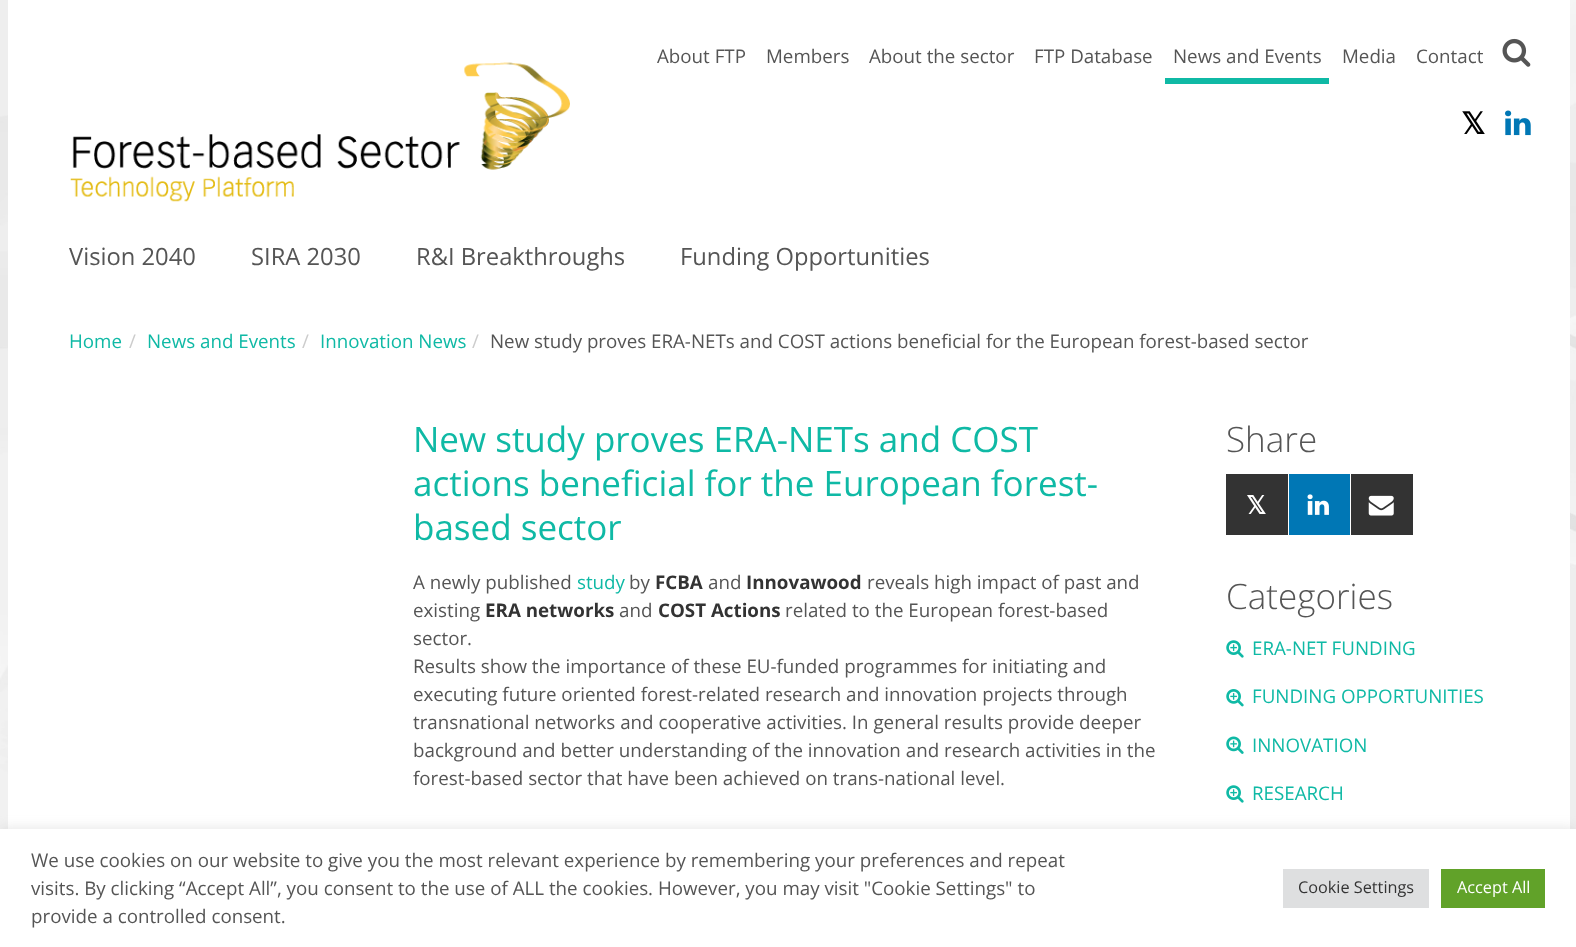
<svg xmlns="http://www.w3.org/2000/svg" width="1576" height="947">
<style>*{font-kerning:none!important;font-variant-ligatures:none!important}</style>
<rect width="100%" height="100%" fill="#fff"/>
<image x="0" y="0" width="1576" height="829" href="media/1.png"/>
<rect x="8" width="1562" height="829" fill="#fff"/>
<image x="70" y="62" width="500" height="140" href="media/2.png"/>
<text x="657" y="63" style="font-family:Open Sans;font-size:18.75px;fill:#555">About FTP</text>
<text x="766" y="63" style="font-family:Open Sans;font-size:18.75px;fill:#555">Members</text>
<text x="869" y="63" style="font-family:Open Sans;font-size:18.75px;fill:#555">About the sector</text>
<text x="1034" y="63" style="font-family:Open Sans;font-size:18.75px;fill:#555">FTP Database</text>
<rect x="1165" y="78" width="164" height="6" fill="#0fb9a5"/>
<text x="1173" y="63" style="font-family:Open Sans;font-size:18.75px;fill:#555">News and Events</text>
<text x="1342" y="63" style="font-family:Open Sans;font-size:18.75px;fill:#555">Media</text>
<text x="1416" y="63" style="font-family:Open Sans;font-size:18.75px;fill:#555">Contact</text>
<image x="1502" y="38" width="29" height="29" href="media/3.png"/>
<text x="1461" y="134" style="font-family:DejaVu Sans;font-size:30px;font-weight:bold;fill:#000">𝕏</text>
<image x="1505" y="110" width="26" height="26" href="media/4.png"/>
<text x="69" y="265" style="font-family:Open Sans;font-size:23.75px;fill:#555">Vision 2040</text>
<text x="251" y="265" style="font-family:Open Sans;font-size:23.75px;fill:#555">SIRA 2030</text>
<text x="416" y="265" style="font-family:Open Sans;font-size:23.75px;fill:#555">R&amp;I Breakthroughs</text>
<text x="680" y="265" style="font-family:Open Sans;font-size:23.75px;fill:#555">Funding Opportunities</text>
<text x="69" y="348" style="font-family:Open Sans;font-size:18.75px;fill:#0fb9a5">Home</text>
<text x="129" y="348" style="font-family:Open Sans;font-size:18.75px;fill:#ccc">/</text>
<text x="147" y="348" style="font-family:Open Sans;font-size:18.75px;fill:#0fb9a5">News and Events</text>
<text x="302" y="348" style="font-family:Open Sans;font-size:18.75px;fill:#ccc">/</text>
<text x="320" y="348" style="font-family:Open Sans;font-size:18.75px;fill:#0fb9a5">Innovation News</text>
<text x="472" y="348" style="font-family:Open Sans;font-size:18.75px;fill:#ccc">/</text>
<text x="490" y="348" style="font-family:Open Sans;font-size:18.75px;fill:#555">New study proves ERA-NETs and COST actions beneficial for the European forest-based sector</text>
<text x="413" y="452" style="font-family:Open Sans;font-size:35px;fill:#0fb9a5">New study proves ERA-NETs and COST</text>
<text x="413" y="496" style="font-family:Open Sans;font-size:35px;fill:#0fb9a5">actions beneficial for the European forest-</text>
<text x="413" y="540" style="font-family:Open Sans;font-size:35px;fill:#0fb9a5">based sector</text>
<text x="413" y="589" style="font-family:Open Sans;font-size:18.75px;fill:#555">A newly published</text>
<text x="577" y="589" style="font-family:Open Sans;font-size:18.75px;fill:#0fb9a5">study</text>
<text x="629" y="589" style="font-family:Open Sans;font-size:18.75px;fill:#555">by</text>
<text x="655" y="589" style="font-family:Open Sans;font-size:18.75px;font-weight:bold;fill:#333">FCBA</text>
<text x="708" y="589" style="font-family:Open Sans;font-size:18.75px;fill:#555">and</text>
<text x="746" y="589" style="font-family:Open Sans;font-size:18.75px;font-weight:bold;fill:#333">Innovawood</text>
<text x="867" y="589" style="font-family:Open Sans;font-size:18.75px;fill:#555">reveals high impact of past and</text>
<text x="413" y="617" style="font-family:Open Sans;font-size:18.75px;fill:#555">existing</text>
<text x="485" y="617" style="font-family:Open Sans;font-size:18.75px;font-weight:bold;fill:#333">ERA networks</text>
<text x="619" y="617" style="font-family:Open Sans;font-size:18.75px;fill:#555">and</text>
<text x="658" y="617" style="font-family:Open Sans;font-size:18.75px;font-weight:bold;fill:#333">COST Actions</text>
<text x="785" y="617" style="font-family:Open Sans;font-size:18.75px;fill:#555">related to the European forest-based</text>
<text x="413" y="645" style="font-family:Open Sans;font-size:18.75px;fill:#555">sector.</text>
<text x="413" y="673" style="font-family:Open Sans;font-size:18.75px;fill:#555">Results show the importance of these EU-funded programmes for initiating and</text>
<text x="413" y="701" style="font-family:Open Sans;font-size:18.75px;fill:#555">executing future oriented forest-related research and innovation projects through</text>
<text x="413" y="729" style="font-family:Open Sans;font-size:18.75px;fill:#555">transnational networks and cooperative activities. In general results provide deeper</text>
<text x="413" y="757" style="font-family:Open Sans;font-size:18.75px;fill:#555">background and better understanding of the innovation and research activities in the</text>
<text x="413" y="785" style="font-family:Open Sans;font-size:18.75px;fill:#555">forest-based sector that have been achieved on trans-national level.</text>
<text x="1226" y="452" style="font-family:Open Sans;font-size:35px;font-weight:300;fill:#555">Share</text>
<rect x="1226" y="474" width="62" height="61" fill="#333"/>
<text x="1246" y="514" style="font-family:DejaVu Sans;font-size:25px;font-weight:bold;fill:#fff">𝕏</text>
<rect x="1289" y="474" width="61" height="61" fill="#0077b5"/>
<image x="1307" y="494" width="22" height="21" href="media/5.png"/>
<rect x="1351" y="474" width="62" height="61" fill="#333"/>
<image x="1368" y="495" width="26" height="21" href="media/6.png"/>
<text x="1226" y="609" style="font-family:Open Sans;font-size:35px;font-weight:300;fill:#555">Categories</text>
<image x="1226" y="640" width="18" height="18" href="media/7.png"/>
<text x="1252" y="655" style="font-family:Open Sans;font-size:18.75px;fill:#0fb9a5">ERA-NET FUNDING</text>
<image x="1226" y="689" width="18" height="18" href="media/8.png"/>
<text x="1252" y="703" style="font-family:Open Sans;font-size:18.75px;fill:#0fb9a5">FUNDING OPPORTUNITIES</text>
<image x="1226" y="736" width="18" height="18" href="media/9.png"/>
<text x="1252" y="752" style="font-family:Open Sans;font-size:18.75px;fill:#0fb9a5">INNOVATION</text>
<image x="1226" y="785" width="18" height="18" href="media/7.png"/>
<text x="1252" y="800" style="font-family:Open Sans;font-size:18.75px;fill:#0fb9a5">RESEARCH</text>
<rect y="828" width="1576" height="118" fill="#acabab4d" filter="blur(6px)"/>
<rect y="829" width="1576" height="118" fill="#fff"/>
<text x="31" y="867" style="font-family:Open Sans;font-size:18.75px;fill:#555">We use cookies on our website to give you the most relevant experience by remembering your preferences and repeat</text>
<text x="31" y="895" style="font-family:Open Sans;font-size:18.75px;fill:#555">visits. By clicking “Accept All”, you consent to the use of ALL the cookies. However, you may visit "Cookie Settings" to</text>
<text x="31" y="923" style="font-family:Open Sans;font-size:18.75px;fill:#555">provide a controlled consent.</text>
<rect x="1283" y="869" width="146" height="39" fill="#dedfe0"/>
<text x="1298" y="893" style="font-family:Open Sans;font-size:16.25px;fill:#333">Cookie Settings</text>
<rect x="1441" y="869" width="104" height="39" fill="#61a229"/>
<text x="1457" y="893" style="font-family:Open Sans;font-size:16.25px;fill:#fff">Accept All</text>
</svg>
